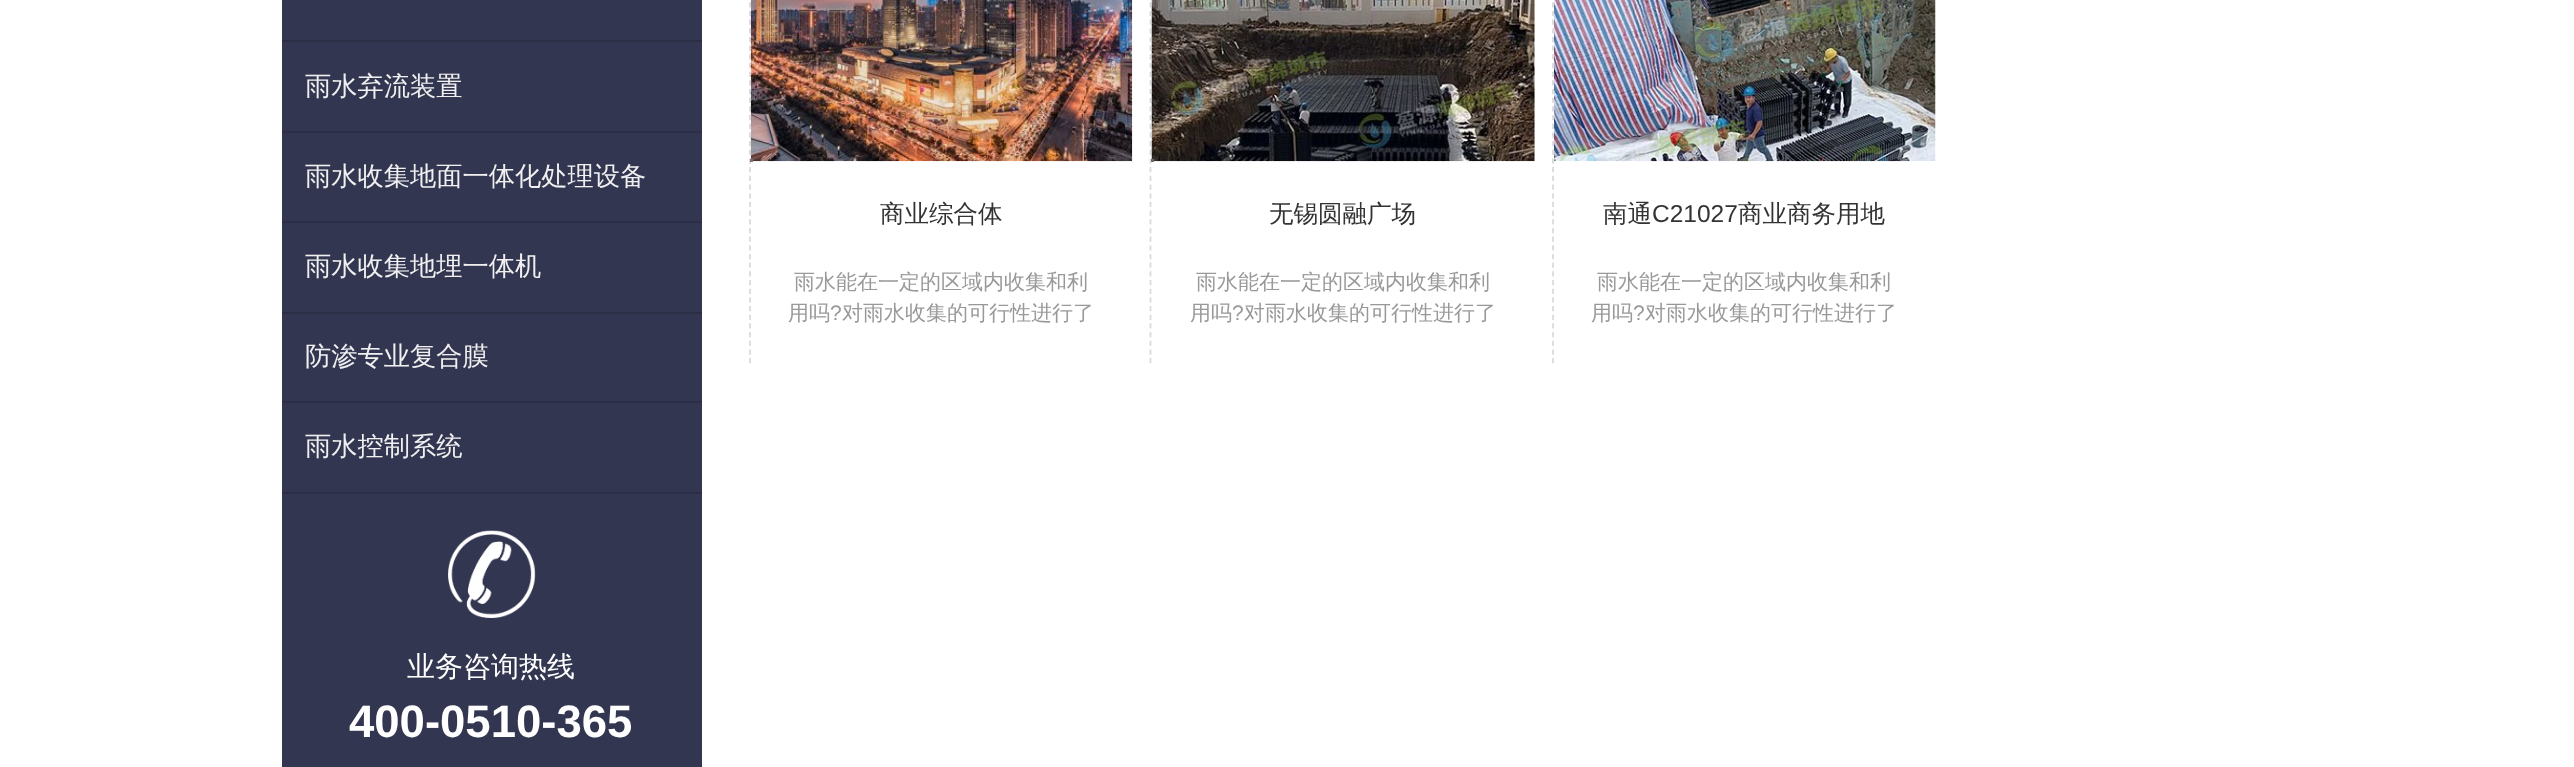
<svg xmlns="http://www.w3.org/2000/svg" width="2574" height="767">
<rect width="100%" height="100%" fill="#fff"/>
<rect x="282" width="420" height="492" fill="#333651"/>
<rect x="282" y="40" width="420" height="2" fill="#2b2e44"/>
<rect x="282" y="131" width="420" height="2" fill="#2b2e44"/>
<text x="305" y="95" style="font-family:WenQuanYi Zen Hei;font-size:26.25px;font-weight:500;fill:#f0f0f0">雨水弃流装置</text>
<rect x="282" y="221" width="420" height="2" fill="#2b2e44"/>
<text x="305" y="185" style="font-family:WenQuanYi Zen Hei;font-size:26.25px;font-weight:500;fill:#f0f0f0">雨水收集地面一体化处理设备</text>
<rect x="282" y="312" width="420" height="2" fill="#2b2e44"/>
<text x="305" y="275" style="font-family:WenQuanYi Zen Hei;font-size:26.25px;font-weight:500;fill:#f0f0f0">雨水收集地埋一体机</text>
<rect x="282" y="401" width="420" height="2" fill="#2b2e44"/>
<text x="305" y="365" style="font-family:WenQuanYi Zen Hei;font-size:26.25px;font-weight:500;fill:#f0f0f0">防渗专业复合膜</text>
<rect x="282" y="492" width="420" height="2" fill="#2b2e44"/>
<text x="305" y="455" style="font-family:WenQuanYi Zen Hei;font-size:26.25px;font-weight:500;fill:#f0f0f0">雨水控制系统</text>
<rect x="282" y="494" width="420" height="273" fill="#333651"/>
<image x="448" y="530" width="88" height="88" href="media/1.png"/>
<text x="407" y="676" style="font-family:WenQuanYi Zen Hei;font-size:28px;font-weight:500;fill:#fff">业务咨询热线</text>
<text x="349" y="737" style="font-family:Liberation Sans;font-size:45.5px;font-weight:bold;fill:#fff">400-0510-365</text>
<path d="M750-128v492" fill="none" stroke="#dbdbdb" stroke-width="1.8" stroke-dasharray="5.25 3.43"/>
<image x="750" y="0" width="383" height="162" href="media/2.png"/>
<rect x="750" y="159" width="3" height="3" fill="#886f68"/>
<text x="880" y="222" style="font-family:WenQuanYi Zen Hei;font-size:24.5px;font-weight:500;fill:#333">商业综合体</text>
<text x="794" y="289" style="font-family:WenQuanYi Zen Hei;font-size:21px;font-weight:500;fill:#999">雨水能在一定的区域内收集和利</text>
<text x="788" y="320" style="font-family:WenQuanYi Zen Hei;font-size:21px;font-weight:500;fill:#999">用吗</text>
<text x="830" y="320" style="font-family:Liberation Sans;font-size:21px;fill:#999">?</text>
<text x="842" y="320" style="font-family:WenQuanYi Zen Hei;font-size:21px;font-weight:500;fill:#999">对雨水收集的可行性进行了</text>
<path d="M1150.5-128v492" fill="none" stroke="#dbdbdb" stroke-width="1.8" stroke-dasharray="5.25 3.43"/>
<image x="1151" y="0" width="384" height="162" href="media/3.png"/>
<rect x="1151" y="159" width="3" height="3" fill="#6c6865"/>
<text x="1269" y="222" style="font-family:WenQuanYi Zen Hei;font-size:24.5px;font-weight:500;fill:#333">无锡圆融广场</text>
<text x="1196" y="289" style="font-family:WenQuanYi Zen Hei;font-size:21px;font-weight:500;fill:#999">雨水能在一定的区域内收集和利</text>
<text x="1190" y="320" style="font-family:WenQuanYi Zen Hei;font-size:21px;font-weight:500;fill:#999">用吗</text>
<text x="1232" y="320" style="font-family:Liberation Sans;font-size:21px;fill:#999">?</text>
<text x="1244" y="320" style="font-family:WenQuanYi Zen Hei;font-size:21px;font-weight:500;fill:#999">对雨水收集的可行性进行了</text>
<path d="M1553-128v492" fill="none" stroke="#dbdbdb" stroke-width="1.8" stroke-dasharray="5.25 3.43"/>
<image x="1554" y="0" width="382" height="162" href="media/4.png"/>
<image x="1554" y="159" width="2" height="3" href="media/5.png"/>
<text x="1603" y="222" style="font-family:WenQuanYi Zen Hei;font-size:24.5px;font-weight:500;fill:#333">南通</text>
<text x="1652" y="222" style="font-family:Liberation Sans;font-size:24.5px;fill:#333">C21027</text>
<text x="1738" y="222" style="font-family:WenQuanYi Zen Hei;font-size:24.5px;font-weight:500;fill:#333">商业商务用地</text>
<text x="1597" y="289" style="font-family:WenQuanYi Zen Hei;font-size:21px;font-weight:500;fill:#999">雨水能在一定的区域内收集和利</text>
<text x="1591" y="320" style="font-family:WenQuanYi Zen Hei;font-size:21px;font-weight:500;fill:#999">用吗</text>
<text x="1633" y="320" style="font-family:Liberation Sans;font-size:21px;fill:#999">?</text>
<text x="1645" y="320" style="font-family:WenQuanYi Zen Hei;font-size:21px;font-weight:500;fill:#999">对雨水收集的可行性进行了</text>
</svg>
